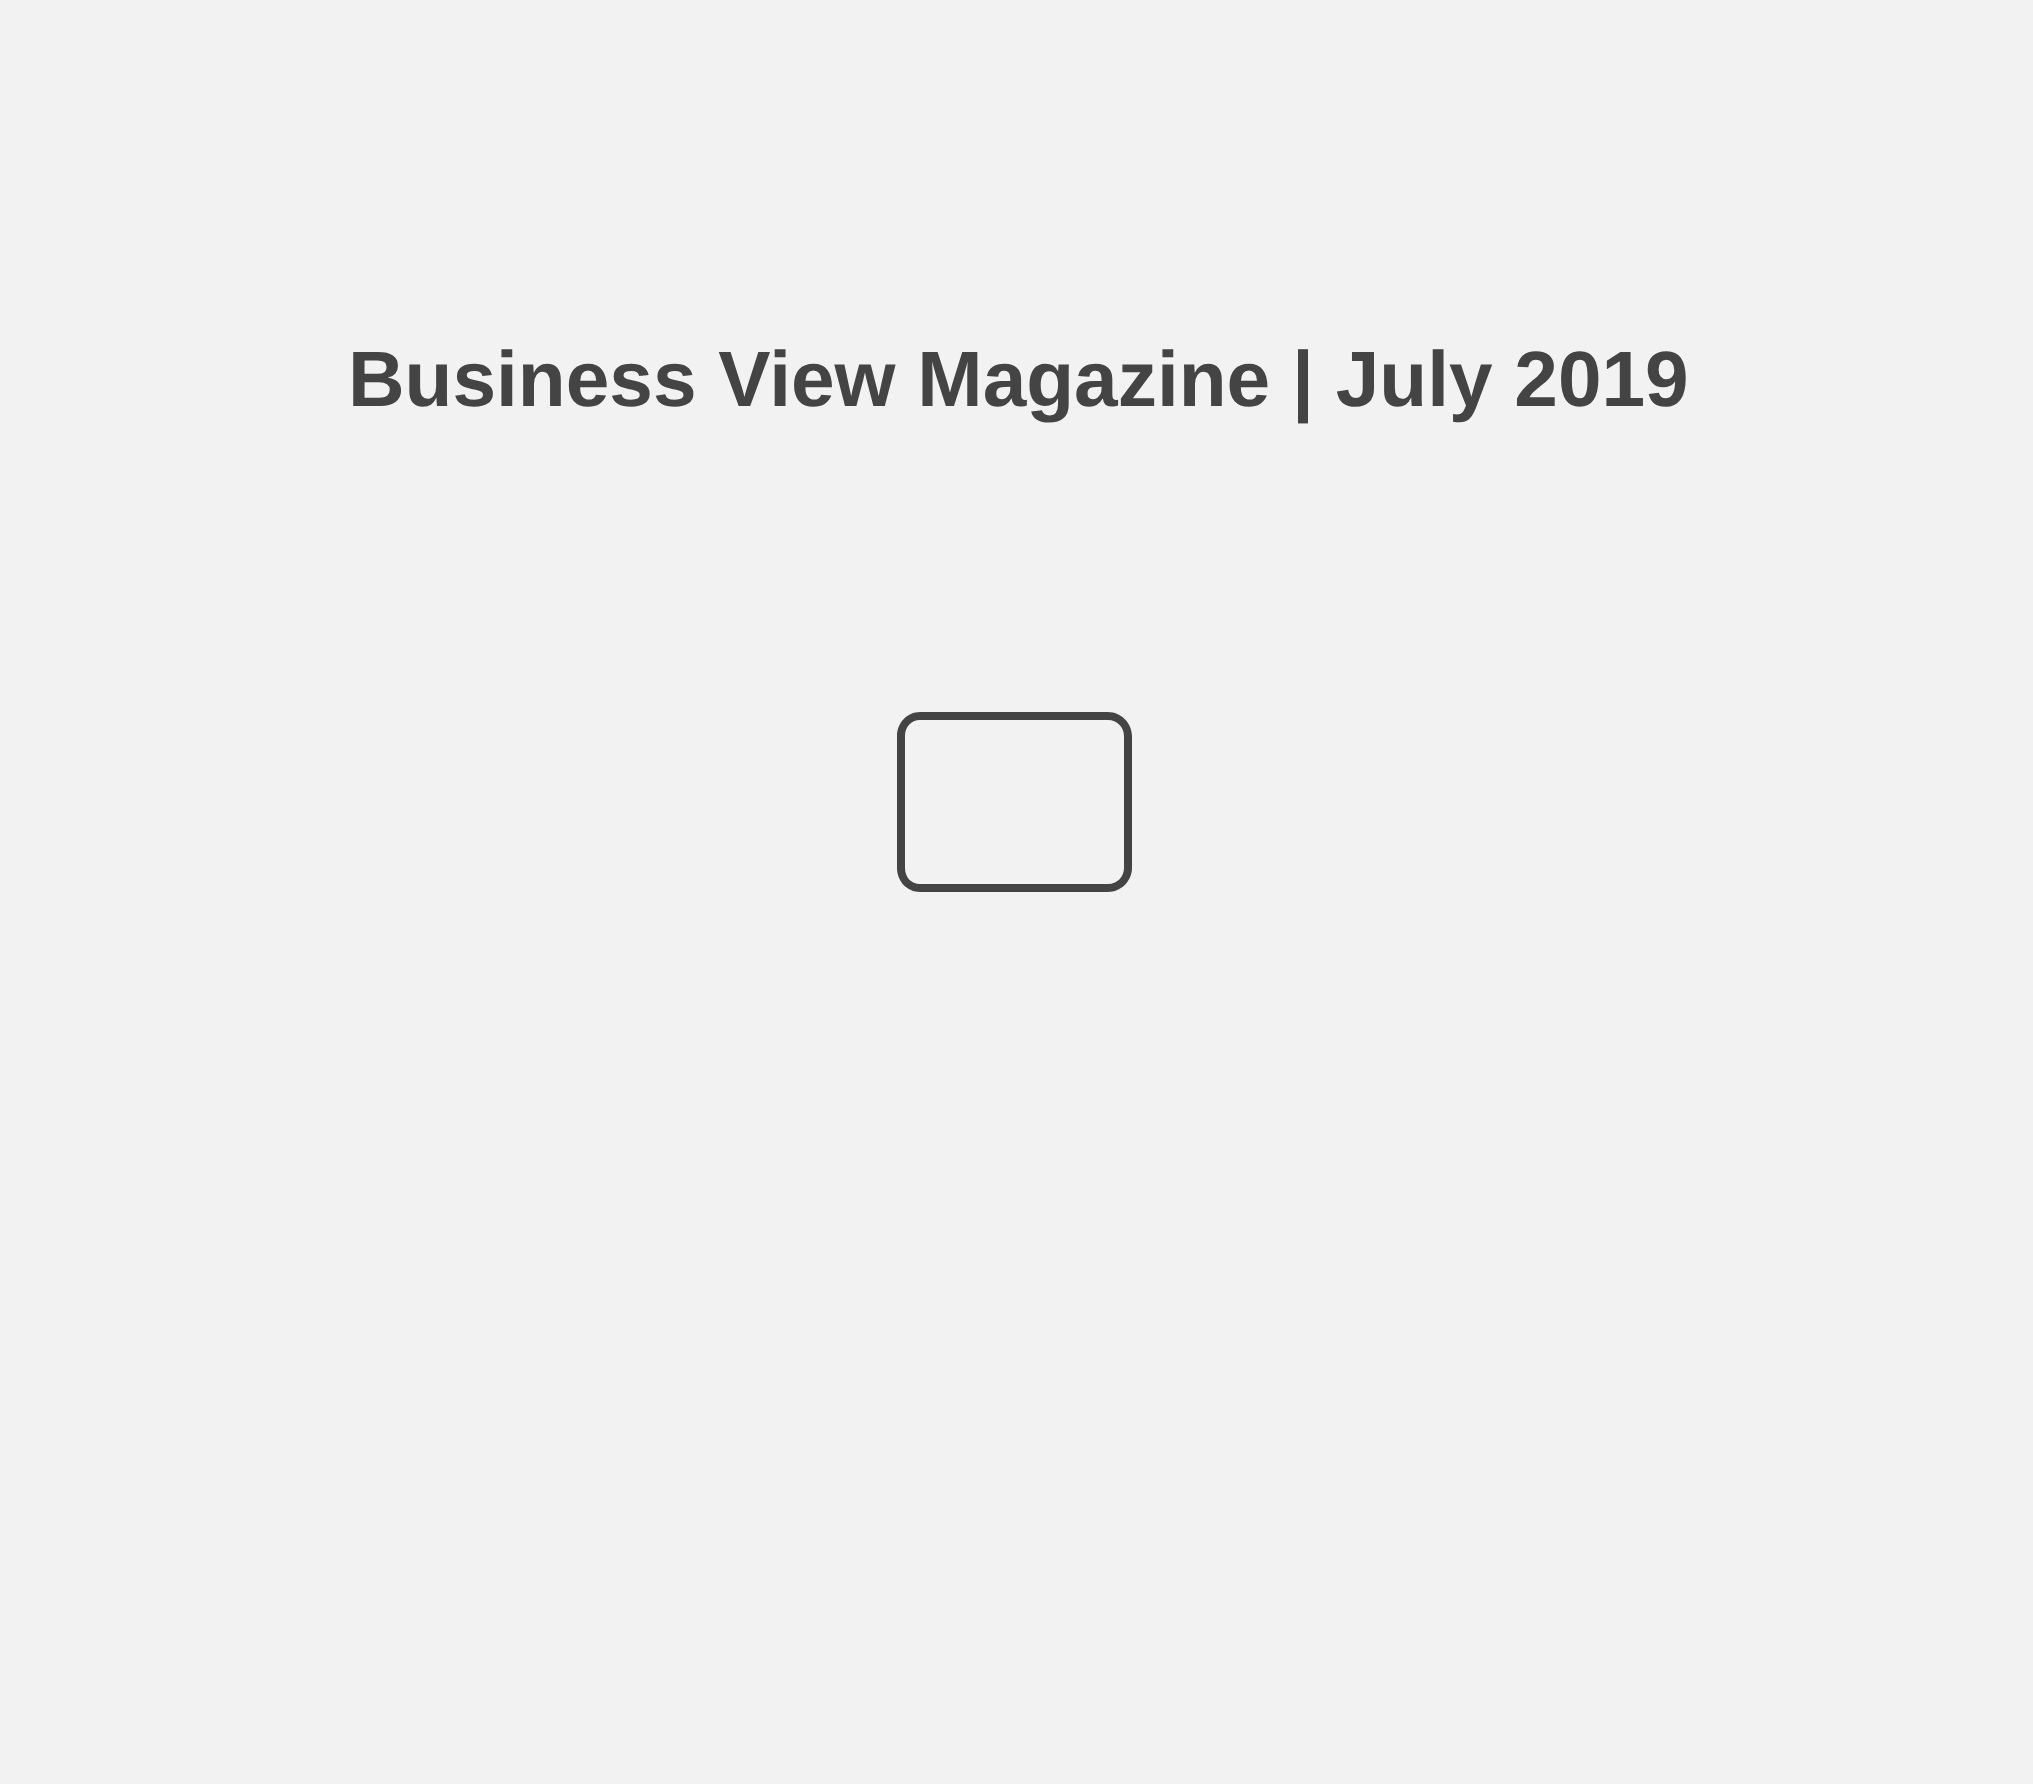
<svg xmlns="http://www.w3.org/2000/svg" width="2033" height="1784">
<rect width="100%" height="100%" fill="#f2f2f2"/>
<text x="348" y="406" style="font-family:Liberation Sans;font-size:78.4px;font-weight:bold;fill:#444">Business View Magazine | July 2019</text>
<path d="M1010 712h-90c-13 0-23 11-23 24v132c0 13 10 24 23 24h90zm0 8h-90c-9 0-15 7-15 16v132c0 9 6 16 15 16h90z" fill="#444" fill-rule="evenodd"/>
<path d="M1010 712h90c13 0 23 11 23 24v132c0 13-10 24-23 24h-90zm0 8h90c9 0 15 7 15 16v132c0 9-6 16-15 16h-90z" fill="#444" fill-rule="evenodd"/>
<path d="M1012 712h96c13.5 0 24 10.5 24 24v132c0 13.5-10.5 24-24 24h-96z" fill="#f2f2f2"/>
<path d="M1012 712h96c13 0 24 11 24 24v132c0 13-11 24-24 24h-96zm0 8h96c9 0 16 7 16 16v132c0 9-7 16-16 16h-96z" fill="#444" fill-rule="evenodd"/>
</svg>
